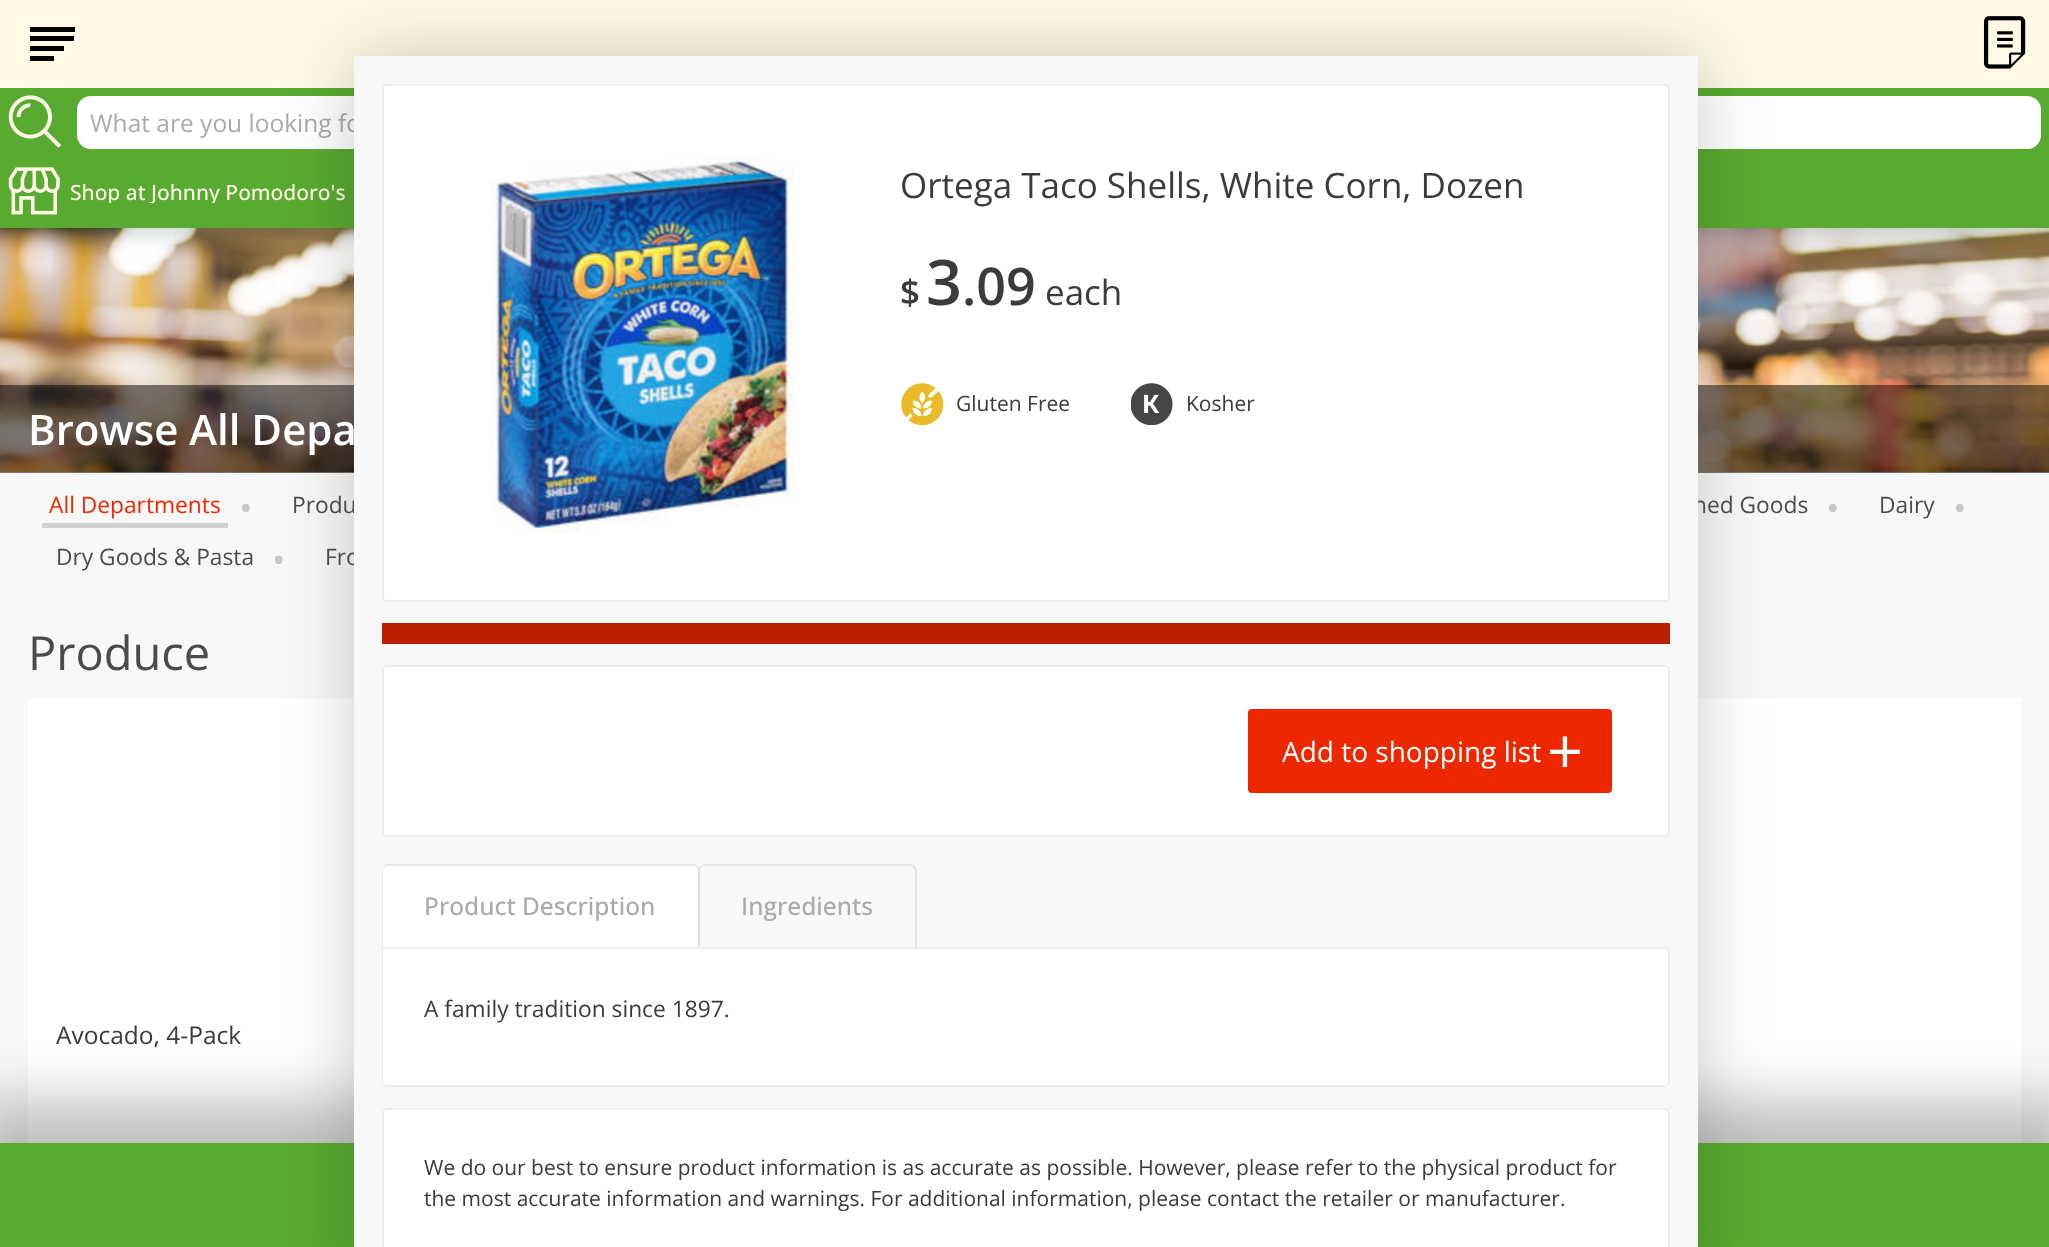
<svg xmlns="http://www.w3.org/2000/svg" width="2049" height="1247">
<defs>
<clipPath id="clip1"><rect x="70" y="182" width="942" height="21"/></clipPath>
<clipPath id="clip2"><rect x="145" y="182" width="867" height="21"/></clipPath>
</defs>
<rect width="100%" height="100%" fill="#f8f8f8"/>
<image x="0" y="228" width="2049" height="245" href="media/7.png"/>
<rect x="9" y="9" width="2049" height="227" fill="#2f4f4f33" filter="blur(9px)"/>
<rect width="2049" height="88" fill="#fffae6"/>
<path d="M30 32v-5h45v5zm0 9v-5h44v5zm0 10v-5h34v5zm0 10v-5h24v5z" fill="#000"/>
<image x="1983" y="16" width="43" height="53" href="media/1.png"/>
<rect y="88" width="2049" height="140" fill="#59aa31"/>
<image x="8" y="95" width="54" height="53" href="media/2.png"/>
<rect x="77" y="96" width="1964" height="53" rx="14" fill="#fff"/>
<text x="90" y="132" style="font-family:Open Sans;font-size:24.5px;fill:#aaa">What are you looking fo</text>
<image x="8" y="167" width="52" height="48" href="media/3.png"/>
<g clip-path="url(#clip1)">
<text x="70" y="200" style="font-family:Open Sans;font-size:21px;font-weight:500;fill:#fffae6">Shop at</text>
</g>
<g clip-path="url(#clip2)">
<text x="151" y="200" style="font-family:Open Sans;font-size:21px;font-weight:500;fill:#fffae6">Johnny Pomodoro's</text>
</g>
<rect y="385" width="2049" height="88" fill="#00000080"/>
<rect x="28" y="698" width="326" height="445" fill="#fff"/>
<rect x="1698" y="698" width="323" height="445" fill="#fff"/>
<rect x="-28" y="1101" width="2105" height="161" fill="#00000040" filter="blur(28px)"/>
<rect y="1143" width="2049" height="104" fill="#59aa31"/>
<rect x="354" y="56" width="1344" height="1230" fill="#00000033" filter="blur(35px)"/>
<text x="292" y="513" style="font-family:Open Sans;font-size:22.75px;fill:#4c4b4b">Produ</text>
<text x="1693" y="513" style="font-family:Open Sans;font-size:22.75px;fill:#4c4b4b">ned Goods</text>
<text x="325" y="565" style="font-family:Open Sans;font-size:22.75px;fill:#4c4b4b">Fro</text>
<rect x="354" y="56" width="1344" height="1191" fill="#f8f8f8"/>
<rect x="382" y="84" width="1288" height="518" rx="5" fill="#fff"/>
<rect x="383" y="85" width="1286" height="516" rx="4" fill="none" stroke="#00000012" stroke-width="2"/>
<image x="490" y="156" width="304" height="378" href="media/4.png"/>
<text x="900" y="198" style="font-family:Open Sans;font-size:35px;fill:#3c3b3b">Ortega Taco Shells, White Corn, Dozen</text>
<text x="900" y="305" style="font-family:Open Sans;font-size:35px;font-weight:600;fill:#3c3b3b">$</text>
<text x="926" y="305" style="font-family:Open Sans;font-size:63px;font-weight:600;fill:#3c3b3b">3</text>
<text x="962" y="305" style="font-family:Open Sans;font-size:52px;font-weight:600;fill:#3c3b3b">.09</text>
<text x="1045" y="305" style="font-family:Open Sans;font-size:35px;fill:#3c3b3b">each</text>
<image x="901" y="383" width="42" height="42" href="media/5.png"/>
<text x="956" y="411" style="font-family:Open Sans;font-size:21px;fill:#3c3b3b">Gluten Free</text>
<image x="1131" y="383" width="42" height="42" href="media/6.png"/>
<text x="1186" y="411" style="font-family:Open Sans;font-size:21px;fill:#3c3b3b">Kosher</text>
<rect x="382" y="623" width="1288" height="21" fill="#ba1f00"/>
<rect x="382" y="665" width="1288" height="172" rx="5" fill="#fff"/>
<rect x="383" y="666" width="1286" height="170" rx="4" fill="none" stroke="#00000012" stroke-width="2"/>
<rect x="1248" y="709" width="364" height="84" rx="4" fill="#ed2800"/>
<text x="1282" y="762" style="font-family:Open Sans;font-size:28px;fill:#fff">Add to shopping list</text>
<text x="1547" y="774" style="font-family:Open Sans;font-size:63px;fill:#fff">+</text>
<path d="M389 865h304c4 0 7 3 7 7v78h-318v-78c0-4 3-7 7-7z" fill="#fff"/>
<path d="M388 866c-1 0-2 1-3 2l-1-1l2-3h309l3 2l-1 2c-1-1-3-2-4-2z" fill="#00000012"/>
<path d="M700 950v-78c0-2-1-4-2-6l-1 2c1 1 1 2 1 4v74z" fill="#00000012"/>
<path d="M382 949v-77c0-2 1-4 2-5l1 1c-1 1-2 2-2 4v75z" fill="#00000012"/>
<text x="424" y="915" style="font-family:Open Sans;font-size:24.5px;font-weight:500;fill:#aaa">Product Description</text>
<path d="M705 864h205c4 0 7 4 7 8v75h-219v-75c0-4 3-8 7-8zm0 2h205c3 0 5 3 5 6v75h-215v-75c0-3 2-6 5-6z" fill="#00000012" fill-rule="evenodd"/>
<text x="741" y="915" style="font-family:Open Sans;font-size:24.5px;font-weight:500;fill:#aaa">Ingredients</text>
<path d="M382 947h1283c3 0 5 2 5 5v130c0 3-2 5-5 5h-1278c-3 0-5-2-5-5z" fill="#fff"/>
<path d="M383 948h1282c2 0 4 2 4 4v130c0 2-2 4-4 4h-1278c-2 0-4-2-4-4z" fill="none" stroke="#00000012" stroke-width="2"/>
<path d="M383 949h1281c2 0 4 2 4 4v128c0 2-2 4-4 4h-1277c-2 0-4-2-4-4z" fill="#fff"/>
<text x="424" y="1017" style="font-family:Open Sans;font-size:22.75px;fill:#3c3b3b">A family tradition since 1897.</text>
<path d="M387 1108h1278c3 0 5 2 5 5v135h-1288v-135c0-3 2-5 5-5z" fill="#fff"/>
<rect x="383" y="1109" width="1286" height="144" rx="4" fill="none" stroke="#00000012" stroke-width="2"/>
<text x="424" y="1175" style="font-family:Open Sans;font-size:21px;fill:#3c3b3b">We do our best to ensure product information is as accurate as possible. However, please refer to the physical product for</text>
<text x="424" y="1206" style="font-family:Open Sans;font-size:21px;fill:#3c3b3b">the most accurate information and warnings. For additional information, please contact the retailer or manufacturer.</text>
<text x="28" y="445" style="font-family:Open Sans;font-size:42px;font-weight:600;fill:#fff">Browse All Depa</text>
<rect x="42" y="523" width="186" height="5" fill="#d1d2d3"/>
<text x="49" y="513" style="font-family:Open Sans;font-size:22.75px;fill:#ed2800">All Departments</text>
<text x="239" y="521" style="font-family:Open Sans;font-size:36px;fill:#c8c8c8">•</text>
<text x="1826" y="521" style="font-family:Open Sans;font-size:36px;fill:#c8c8c8">•</text>
<text x="1879" y="513" style="font-family:Open Sans;font-size:22.75px;fill:#4c4b4b">Dairy</text>
<text x="1953" y="521" style="font-family:Open Sans;font-size:36px;fill:#c8c8c8">•</text>
<text x="56" y="565" style="font-family:Open Sans;font-size:22.75px;fill:#4c4b4b">Dry Goods &amp; Pasta</text>
<text x="272" y="573" style="font-family:Open Sans;font-size:36px;fill:#c8c8c8">•</text>
<text x="28" y="670" style="font-family:Open Sans;font-size:47px;fill:#4c4b4b">Produce</text>
<text x="56" y="1044" style="font-family:Open Sans;font-size:24.5px;fill:#3c3b3b">Avocado, 4-Pack</text>
</svg>
